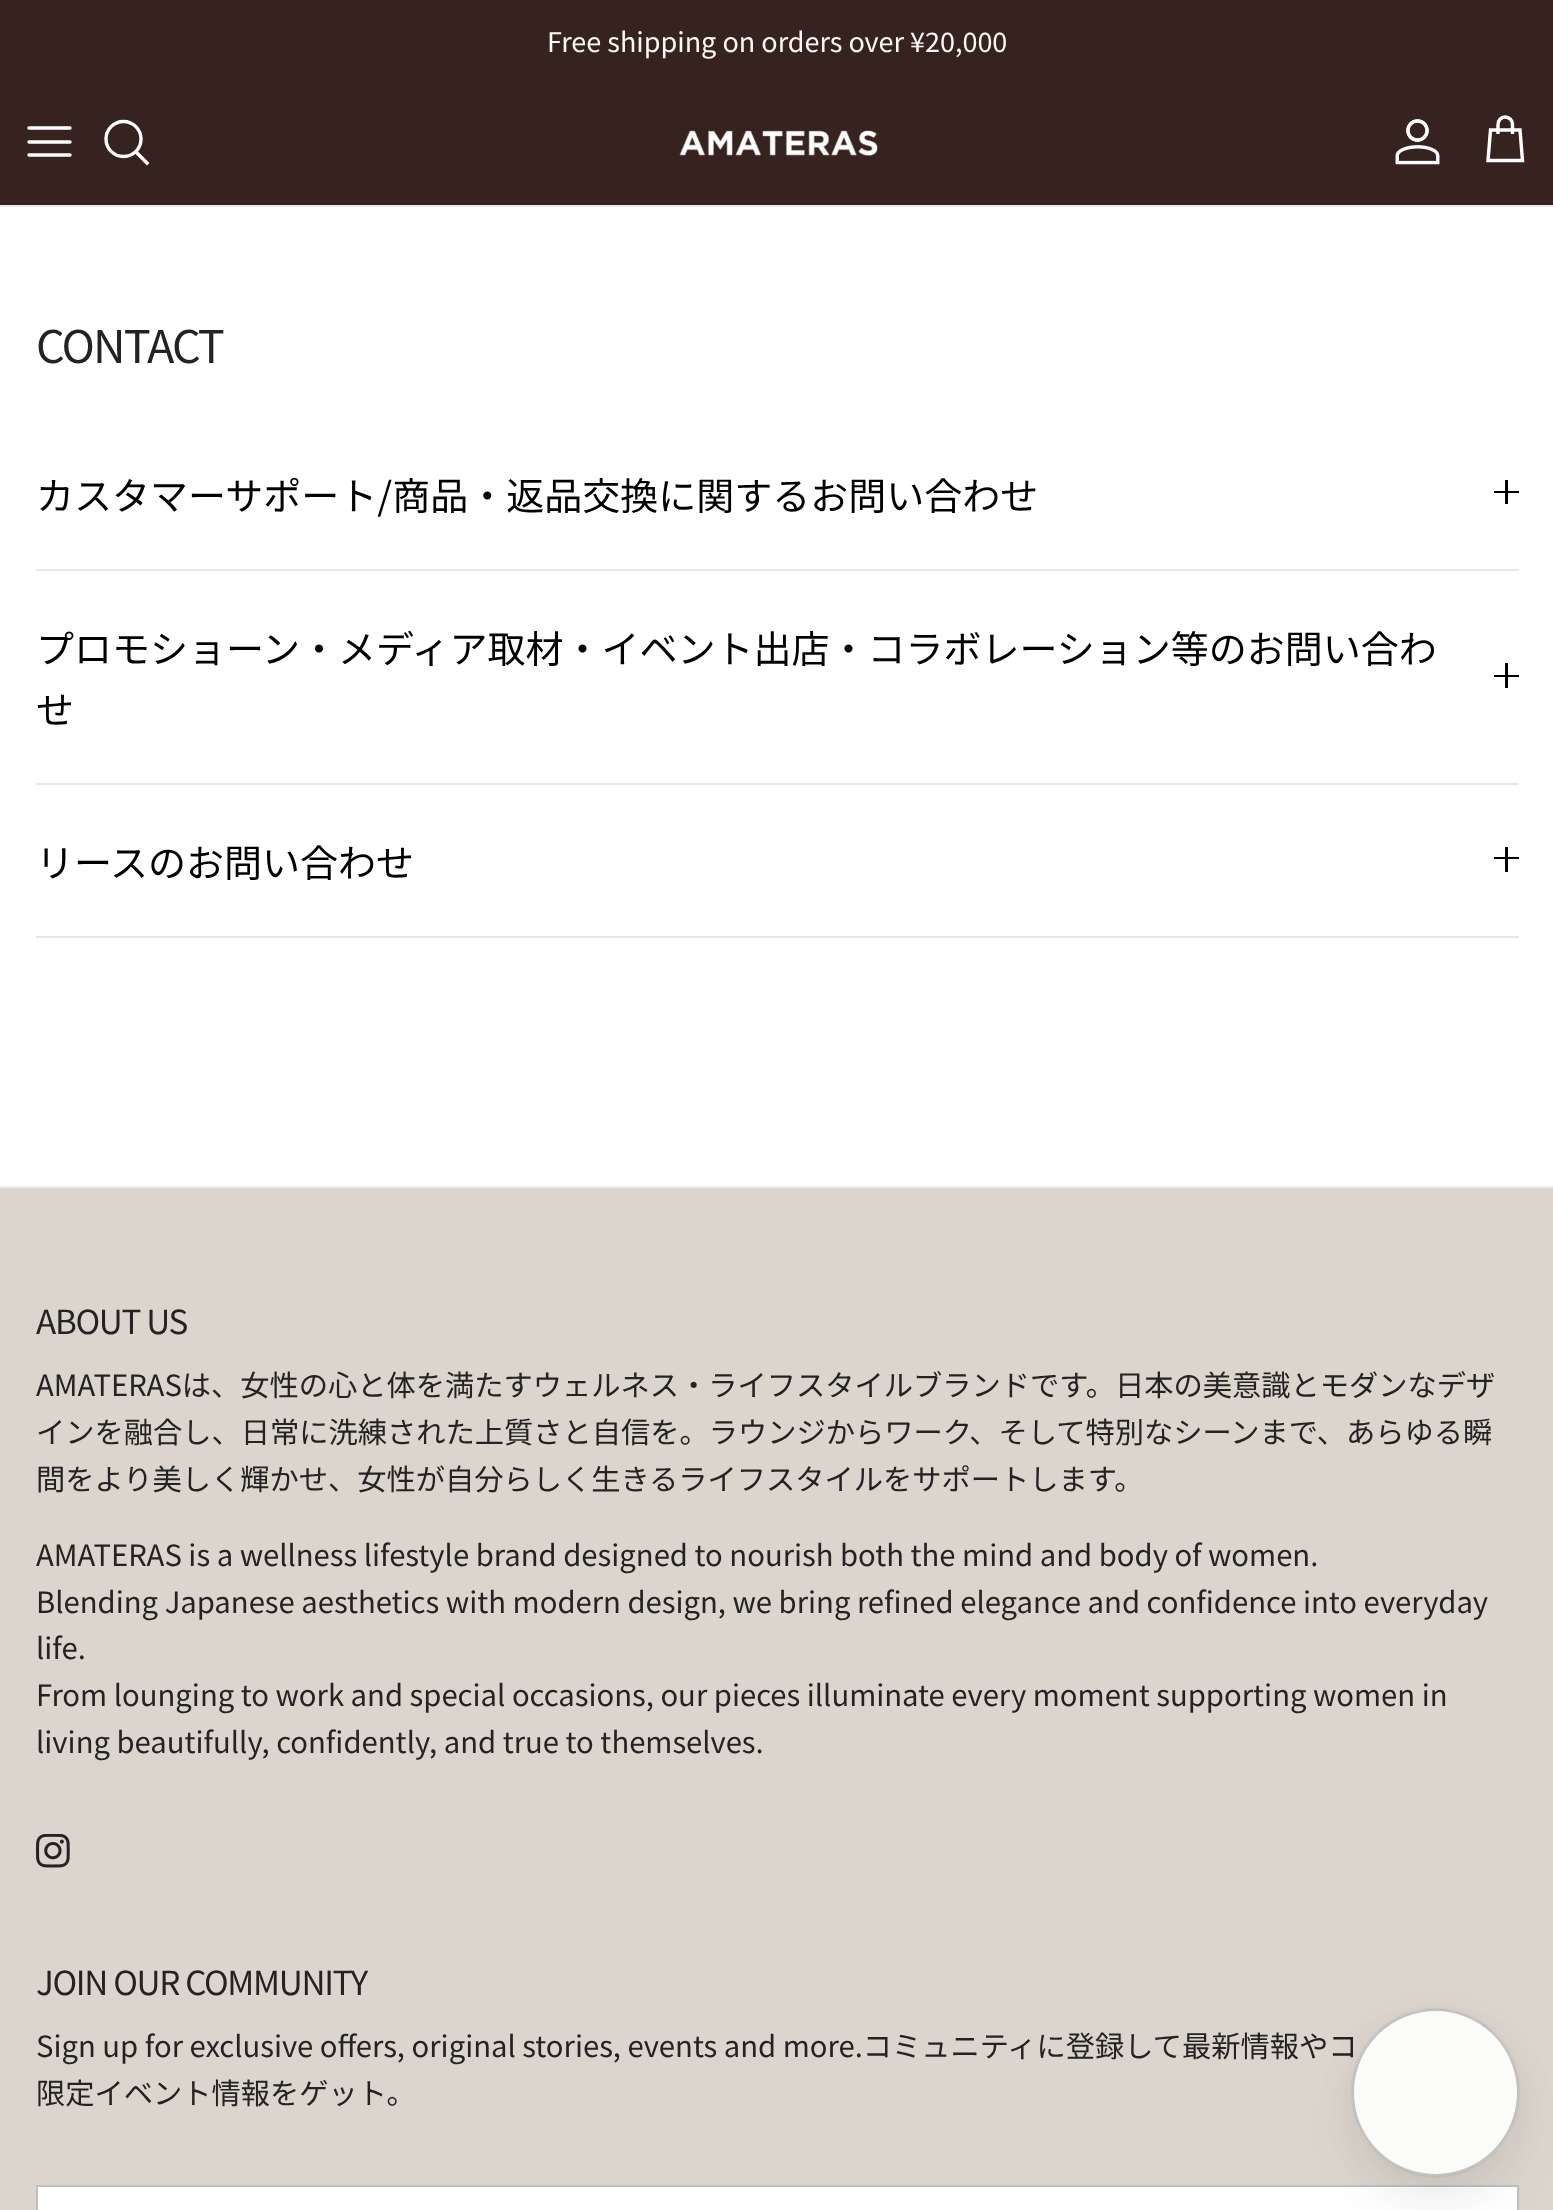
<svg xmlns="http://www.w3.org/2000/svg" width="1553" height="2210">
<rect width="100%" height="100%" fill="#fff"/>
<rect width="1553" height="205" fill="#36231f"/>
<text x="547" y="52" style="font-family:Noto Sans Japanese;font-size:27px;fill:#fbf9f4">Free shipping on orders over ¥20,000</text>
<rect y="205" width="1553" height="2" fill="#ececec"/>
<path d="M29 142h41m-41-14h41m-41 27h41" fill="none" stroke="#fff" stroke-width="3.4" stroke-linecap="round" stroke-linejoin="round"/>
<circle cx="123.5" cy="139" r="17.5" fill="none" stroke="#fff" stroke-width="3.4"/>
<path d="M137 153l10 10" fill="none" stroke="#fff" stroke-width="3.4" stroke-linecap="square"/>
<image x="679" y="130" width="199" height="26" href="media/1.png"/>
<image x="1395" y="119" width="45" height="46" href="media/2.png"/>
<path d="M1512.5 134v-9.5c0-4-3-7.5-7.5-7.5c-4 0-7 3.5-7 7.5v9.5m-7.5-4h29.5l2.5 30.5h-34.5z" fill="none" stroke="#fff" stroke-width="3.4"/>
<text x="36" y="363" style="font-family:Noto Sans Japanese;font-size:45px;letter-spacing:-1.75px;fill:#232323">CONTACT</text>
<rect x="36" y="569" width="1483" height="2" fill="#e6e6e6"/>
<text x="36" y="510" style="font-family:Noto Sans Japanese;font-size:38px;fill:#000">カスタマーサポート/商品・返品交換に関するお問い合わせ</text>
<rect x="1505" y="480" width="3" height="24" fill="#000"/>
<rect x="1494" y="491" width="25" height="2" fill="#000"/>
<rect x="36" y="783" width="1483" height="2" fill="#e6e6e6"/>
<text x="36" y="663" style="font-family:Noto Sans Japanese;font-size:38px;fill:#000">プロモショーン・メディア取材・イベント出店・コラボレーション等のお問い合わ</text>
<rect x="1505" y="663" width="3" height="25" fill="#000"/>
<rect x="1494" y="675" width="25" height="2" fill="#000"/>
<text x="36" y="724" style="font-family:Noto Sans Japanese;font-size:38px;fill:#000">せ</text>
<rect x="36" y="936" width="1483" height="2" fill="#e6e6e6"/>
<text x="36" y="877" style="font-family:Noto Sans Japanese;font-size:38px;fill:#000">リースのお問い合わせ</text>
<rect x="1505" y="847" width="3" height="25" fill="#000"/>
<rect x="1494" y="857" width="25" height="2" fill="#000"/>
<rect y="1188" width="1553" height="1022" fill="#dcd5cd"/>
<rect y="1186" width="1553" height="2" fill="#ececec"/>
<text x="36" y="1334" style="font-family:Noto Sans Japanese;font-size:33.25px;letter-spacing:-1.3px;fill:#232323">ABOUT US</text>
<text x="36" y="1396" style="font-family:Noto Sans Japanese;font-size:29.25px;fill:#232323">AMATERASは、女性の心と体を満たすウェルネス・ライフスタイルブランドです。日本の美意識とモダンなデザ</text>
<text x="36" y="1443" style="font-family:Noto Sans Japanese;font-size:29.25px;fill:#232323">インを融合し、日常に洗練された上質さと自信を。ラウンジからワーク、そして特別なシーンまで、あらゆる瞬</text>
<text x="36" y="1490" style="font-family:Noto Sans Japanese;font-size:29.25px;fill:#232323">間をより美しく輝かせ、女性が自分らしく生きるライフスタイルをサポートします。</text>
<text x="36" y="1566" style="font-family:Noto Sans Japanese;font-size:29.25px;fill:#232323">AMATERAS is a wellness lifestyle brand designed to nourish both the mind and body of women.</text>
<text x="36" y="1613" style="font-family:Noto Sans Japanese;font-size:29.25px;fill:#232323">Blending Japanese aesthetics with modern design, we bring refined elegance and confidence into everyday</text>
<text x="36" y="1659" style="font-family:Noto Sans Japanese;font-size:29.25px;fill:#232323">life.</text>
<text x="36" y="1706" style="font-family:Noto Sans Japanese;font-size:29.25px;fill:#232323">From lounging to work and special occasions, our pieces illuminate every moment supporting women in</text>
<text x="36" y="1753" style="font-family:Noto Sans Japanese;font-size:29.25px;fill:#232323">living beautifully, confidently, and true to themselves.</text>
<image x="36" y="1834" width="34" height="34" href="media/3.png"/>
<text x="36" y="1995" style="font-family:Noto Sans Japanese;font-size:33.25px;letter-spacing:-1.3px;fill:#232323">JOIN OUR COMMUNITY</text>
<text x="36" y="2057" style="font-family:Noto Sans Japanese;font-size:29.25px;fill:#232323">Sign up for exclusive offers, original stories, events and more.コミュニティに登録して最新情報やコ</text>
<text x="36" y="2104" style="font-family:Noto Sans Japanese;font-size:29.25px;fill:#232323">限定イベント情報をゲット。</text>
<rect x="37" y="2186" width="1481" height="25" fill="#fff" stroke="#bfbfbf" stroke-width="2"/>
<rect x="1352" y="2018" width="167" height="167" rx="83.5" fill="#0000000d" filter="blur(18px)"/>
<rect x="1375" y="2068" width="121" height="121" rx="60.5" fill="#1118261a" filter="blur(36px)"/>
<rect x="1352" y="2009" width="167" height="167" rx="83.5" fill="#00000026" filter="blur(1px)"/>
<circle cx="1435.5" cy="2092.5" r="83.5" fill="#fbfbfa"/>
<circle cx="1435.5" cy="2092.5" r="82.5" fill="none" stroke="#1a161440" stroke-width="2"/>
</svg>
